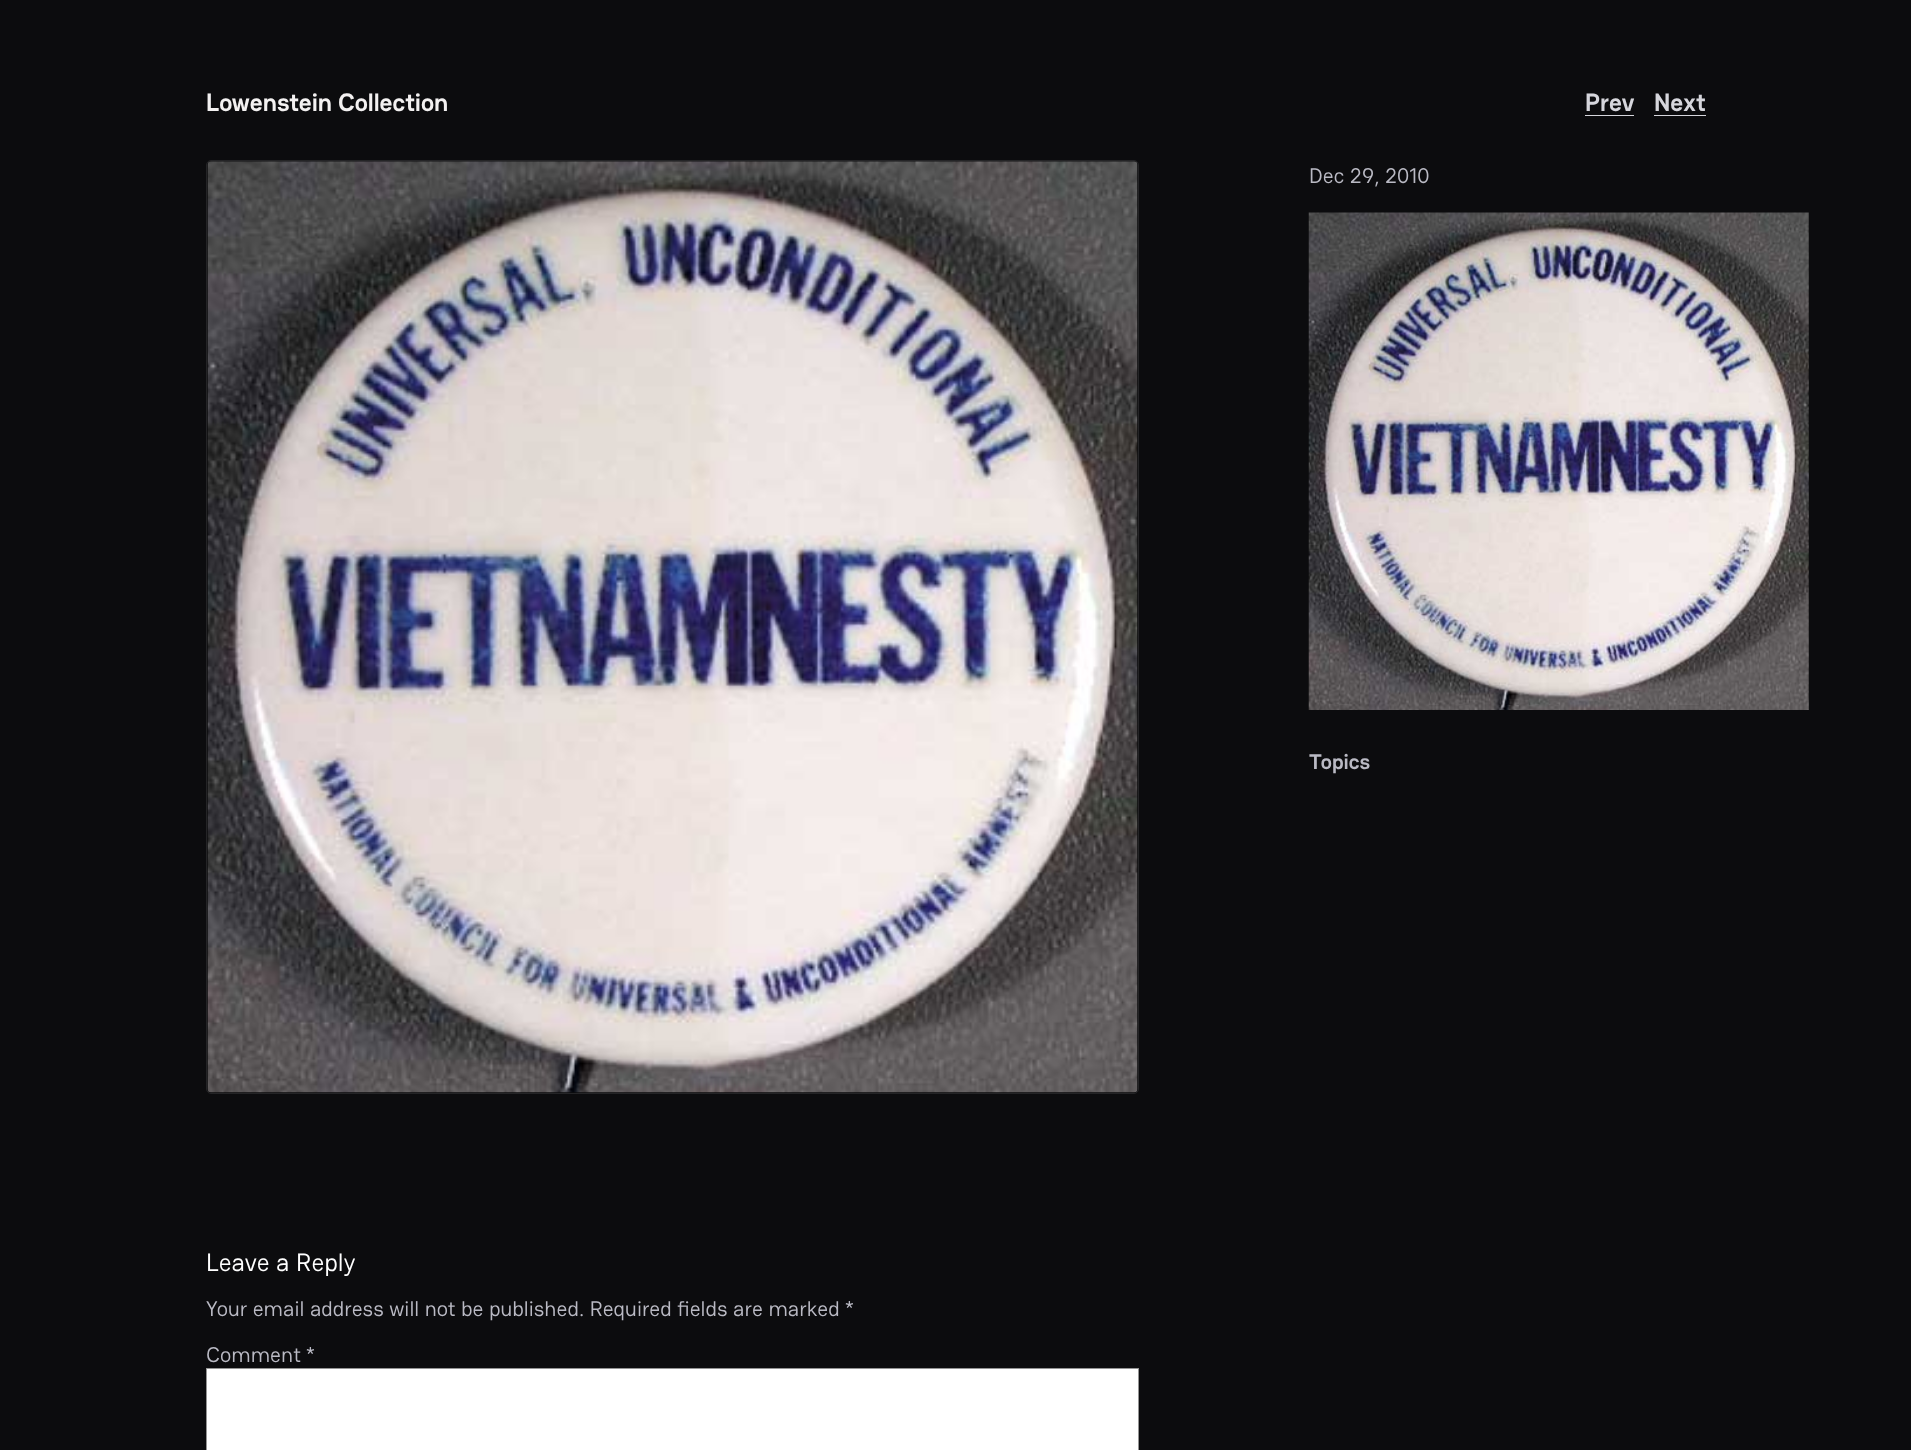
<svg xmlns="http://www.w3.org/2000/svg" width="1911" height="1450">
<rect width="100%" height="100%" fill="#0c0c0e"/>
<text x="206" y="111" style="font-family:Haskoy;font-size:25px;font-weight:bold;fill:#f3f1f1">Lowenstein Collection</text>
<text x="1585" y="111" style="font-family:Haskoy;font-size:25px;font-weight:bold;fill:#d6d6dc">Prev</text>
<rect x="1585" y="115" width="49" height="1" fill="#d6d6dc"/>
<text x="1654" y="111" style="font-family:Haskoy;font-size:25px;font-weight:bold;fill:#d6d6dc">Next</text>
<rect x="1654" y="115" width="52" height="1" fill="#d6d6dc"/>
<rect x="206.5" y="160.5" width="932" height="933" rx="4.5" fill="none" stroke="#242426"/>
<image x="207" y="161" width="931" height="932" href="media/1.png"/>
<text x="1309" y="183" style="font-family:Haskoy;font-size:21.25px;fill:#babac4">Dec 29, 2010</text>
<image x="1308" y="212" width="501" height="498" href="media/2.png"/>
<text x="1309" y="769" style="font-family:Haskoy;font-size:21.25px;font-weight:bold;fill:#babac4">Topics</text>
<text x="206" y="1271" style="font-family:Haskoy;font-size:25px;fill:#fff">Leave a Reply</text>
<text x="206" y="1316" style="font-family:Haskoy;font-size:21.25px;fill:#babac4">Your email address will not be published. Required fields are marked *</text>
<text x="206" y="1362" style="font-family:Haskoy;font-size:21.25px;fill:#babac4">Comment *</text>
<rect x="206.5" y="1368.5" width="932" height="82" fill="#fff" stroke="#949494"/>
</svg>
